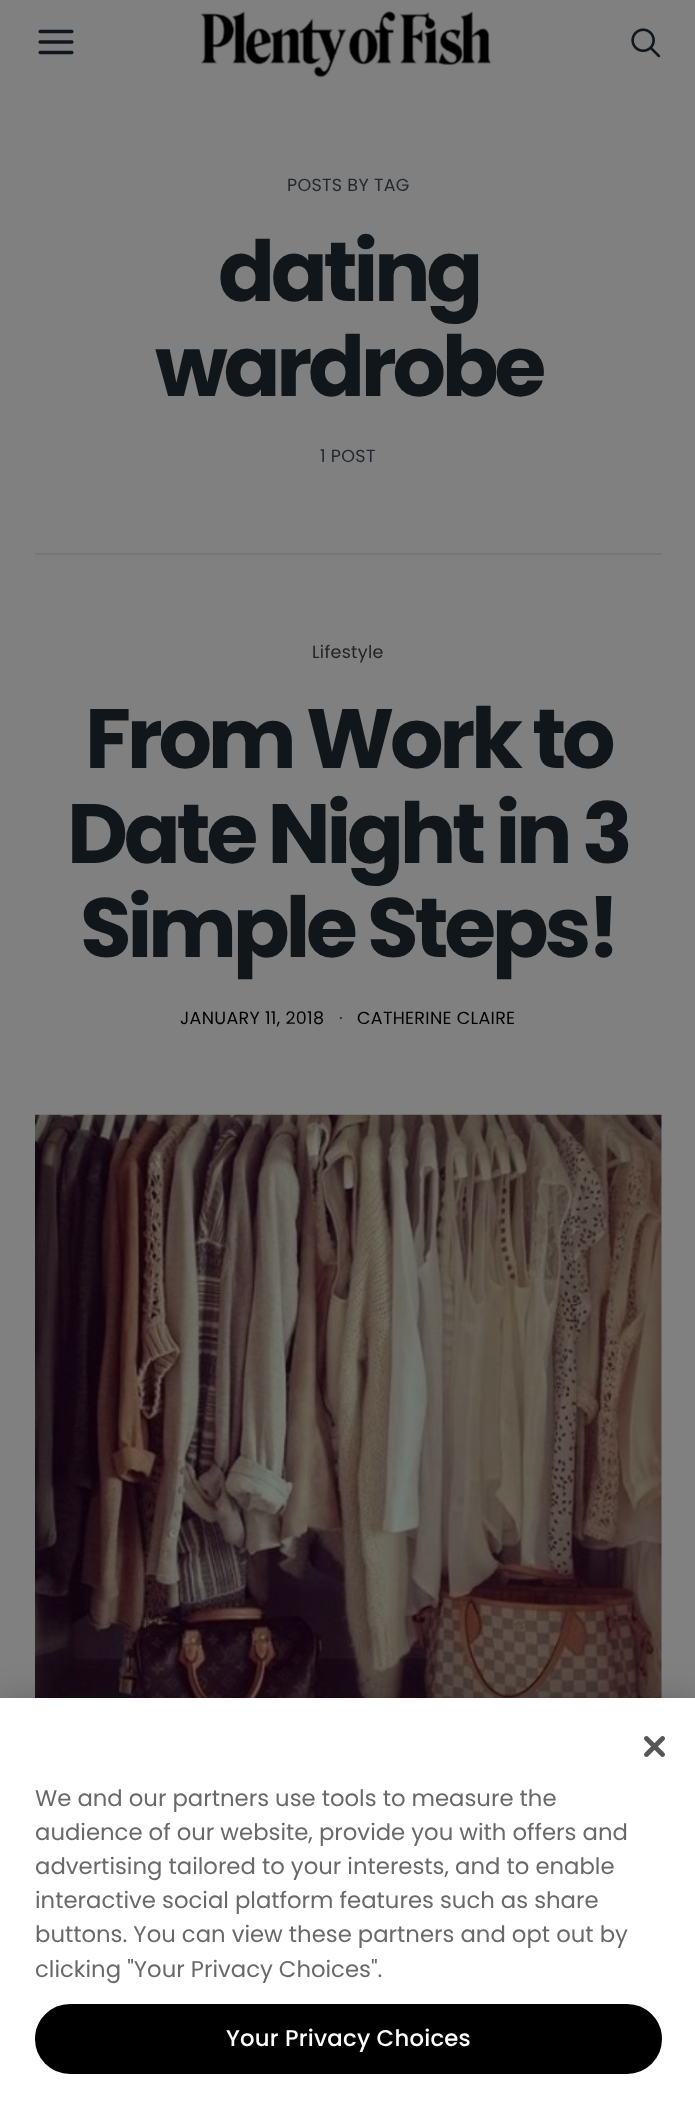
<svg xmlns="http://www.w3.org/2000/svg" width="695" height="2101">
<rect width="100%" height="100%" fill="#808080"/>
<image x="38" y="29" width="36" height="26" href="media/1.png"/>
<image x="200" y="11" width="292" height="67" href="media/2.png"/>
<image x="631" y="28" width="30" height="30" href="media/3.png"/>
<text x="287" y="191" style="font-family:Poppins;font-size:17.5px;letter-spacing:0.3px;fill:#23282e">POSTS BY TAG</text>
<text x="218" y="301" style="font-family:Poppins;font-size:84px;font-weight:bold;letter-spacing:-4.25px;fill:#11161b">dating</text>
<text x="155" y="396" style="font-family:Poppins;font-size:84px;font-weight:bold;letter-spacing:-4.25px;fill:#11161b">wardrobe</text>
<text x="320" y="462" style="font-family:Poppins;font-size:17.5px;letter-spacing:0.3px;fill:#23282e">1 POST</text>
<rect x="35" y="553" width="627" height="2" fill="#757678"/>
<text x="312" y="658" style="font-family:Poppins;font-size:17.5px;letter-spacing:0.3px;fill:#232326">Lifestyle</text>
<text x="85" y="768" style="font-family:Poppins;font-size:84px;font-weight:bold;letter-spacing:-4.25px;fill:#11161b">From Work to</text>
<text x="67" y="863" style="font-family:Poppins;font-size:84px;font-weight:bold;letter-spacing:-4.25px;fill:#11161b">Date Night in 3</text>
<text x="80" y="957" style="font-family:Poppins;font-size:84px;font-weight:bold;letter-spacing:-4.25px;fill:#11161b">Simple Steps!</text>
<text x="180" y="1024" style="font-family:Poppins;font-size:17.5px;letter-spacing:0.3px;fill:#000">JANUARY 11, 2018</text>
<text x="339" y="1024" style="font-family:Poppins;font-size:17.5px;letter-spacing:0.3px;fill:#23282e">·</text>
<text x="357" y="1024" style="font-family:Poppins;font-size:17.5px;letter-spacing:0.3px;fill:#000">CATHERINE CLAIRE</text>
<image x="35" y="1114" width="627" height="584" href="media/4.png"/>
<rect y="1698" width="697" height="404" fill="#00000033" filter="blur(16px)"/>
<rect y="1698" width="695" height="403" fill="#fff"/>
<image x="644" y="1736" width="21" height="21" href="media/5.png"/>
<text x="35" y="1806" style="font-family:Poppins;font-size:22.75px;fill:#696969">We and our partners use tools to measure the</text>
<text x="35" y="1840" style="font-family:Poppins;font-size:22.75px;fill:#696969">audience of our website, provide you with offers and</text>
<text x="35" y="1874" style="font-family:Poppins;font-size:22.75px;fill:#696969">advertising tailored to your interests, and to enable</text>
<text x="35" y="1908" style="font-family:Poppins;font-size:22.75px;fill:#696969">interactive social platform features such as share</text>
<text x="35" y="1942" style="font-family:Poppins;font-size:22.75px;fill:#696969">buttons. You can view these partners and opt out by</text>
<text x="35" y="1977" style="font-family:Poppins;font-size:22.75px;fill:#696969">clicking "Your Privacy Choices".</text>
<rect x="37" y="2006" width="623" height="66" rx="33" fill="#000" stroke="#000" stroke-width="4"/>
<text x="226" y="2046" style="font-family:Poppins;font-size:22.75px;font-weight:500;letter-spacing:0.25px;fill:#fff">Your Privacy Choices</text>
</svg>
